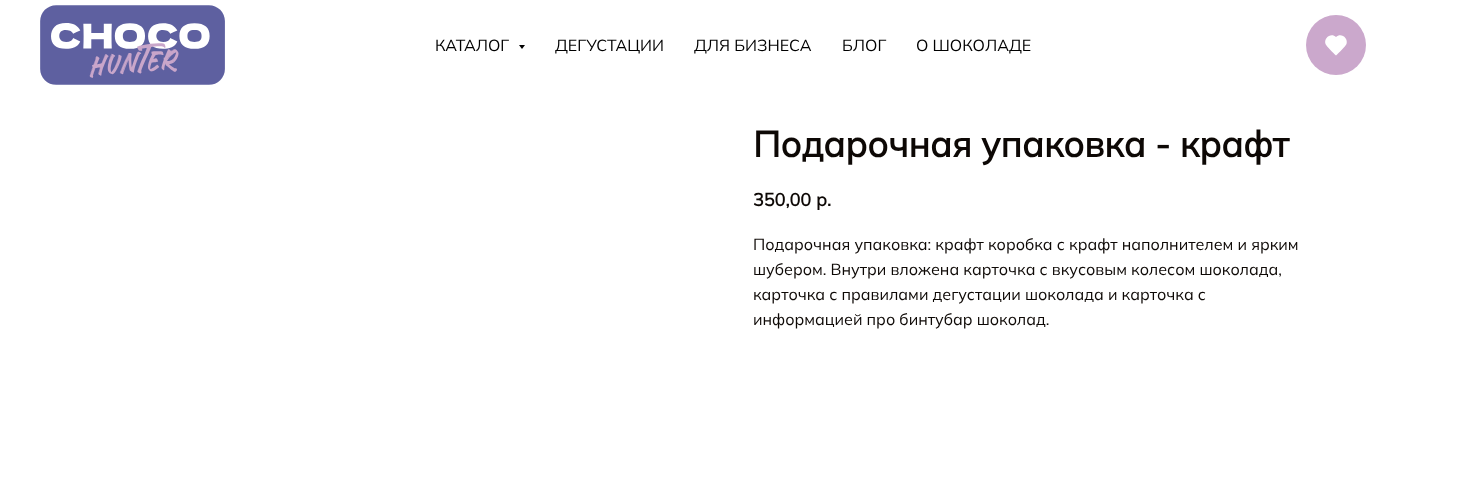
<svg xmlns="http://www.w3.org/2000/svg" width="1466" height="480">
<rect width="100%" height="100%" fill="#fff"/>
<image x="40" y="5" width="185" height="80" href="media/1.png"/>
<text x="435" y="51" style="font-family:Mulish;font-size:16px;font-weight:200;fill:#000">КАТАЛОГ</text>
<path d="M519 45h6l-3 4z" fill="#000"/>
<text x="555" y="51" style="font-family:Mulish;font-size:16px;font-weight:200;fill:#000">ДЕГУСТАЦИИ</text>
<text x="694" y="51" style="font-family:Mulish;font-size:16px;font-weight:200;fill:#000">ДЛЯ БИЗНЕСА</text>
<text x="842" y="51" style="font-family:Mulish;font-size:16px;font-weight:200;fill:#000">БЛОГ</text>
<text x="916" y="51" style="font-family:Mulish;font-size:16px;font-weight:200;fill:#000">О ШОКОЛАДЕ</text>
<circle cx="1336" cy="45" r="30" fill="#cba8cc"/>
<path d="M1336 37c5-4.5 12.5 1 10.5 7c-1 2.5-8 9-10.5 11.5c-2.5-2.5-9.5-9-10.5-11.5c-2-6 5.5-11.5 10.5-7z" fill="#fff"/>
<text x="753" y="157" style="font-family:Mulish;font-size:36px;font-weight:bold;fill:#0d0805">Подарочная упаковка - крафт</text>
<text x="753" y="206" style="font-family:Mulish;font-size:18px;font-weight:bold;fill:#0d0805">350,00</text>
<text x="816" y="206" style="font-family:Mulish;font-size:18px;font-weight:bold;fill:#0d0805">р.</text>
<text x="753" y="250" style="font-family:Mulish;font-size:16px;font-weight:200;fill:#0d0805">Подарочная упаковка: крафт коробка с крафт наполнителем и ярким</text>
<text x="753" y="275" style="font-family:Mulish;font-size:16px;font-weight:200;fill:#0d0805">шубером. Внутри вложена карточка с вкусовым колесом шоколада,</text>
<text x="753" y="300" style="font-family:Mulish;font-size:16px;font-weight:200;fill:#0d0805">карточка с правилами дегустации шоколада и карточка с</text>
<text x="753" y="325" style="font-family:Mulish;font-size:16px;font-weight:200;fill:#0d0805">информацией про бинтубар шоколад.</text>
</svg>
